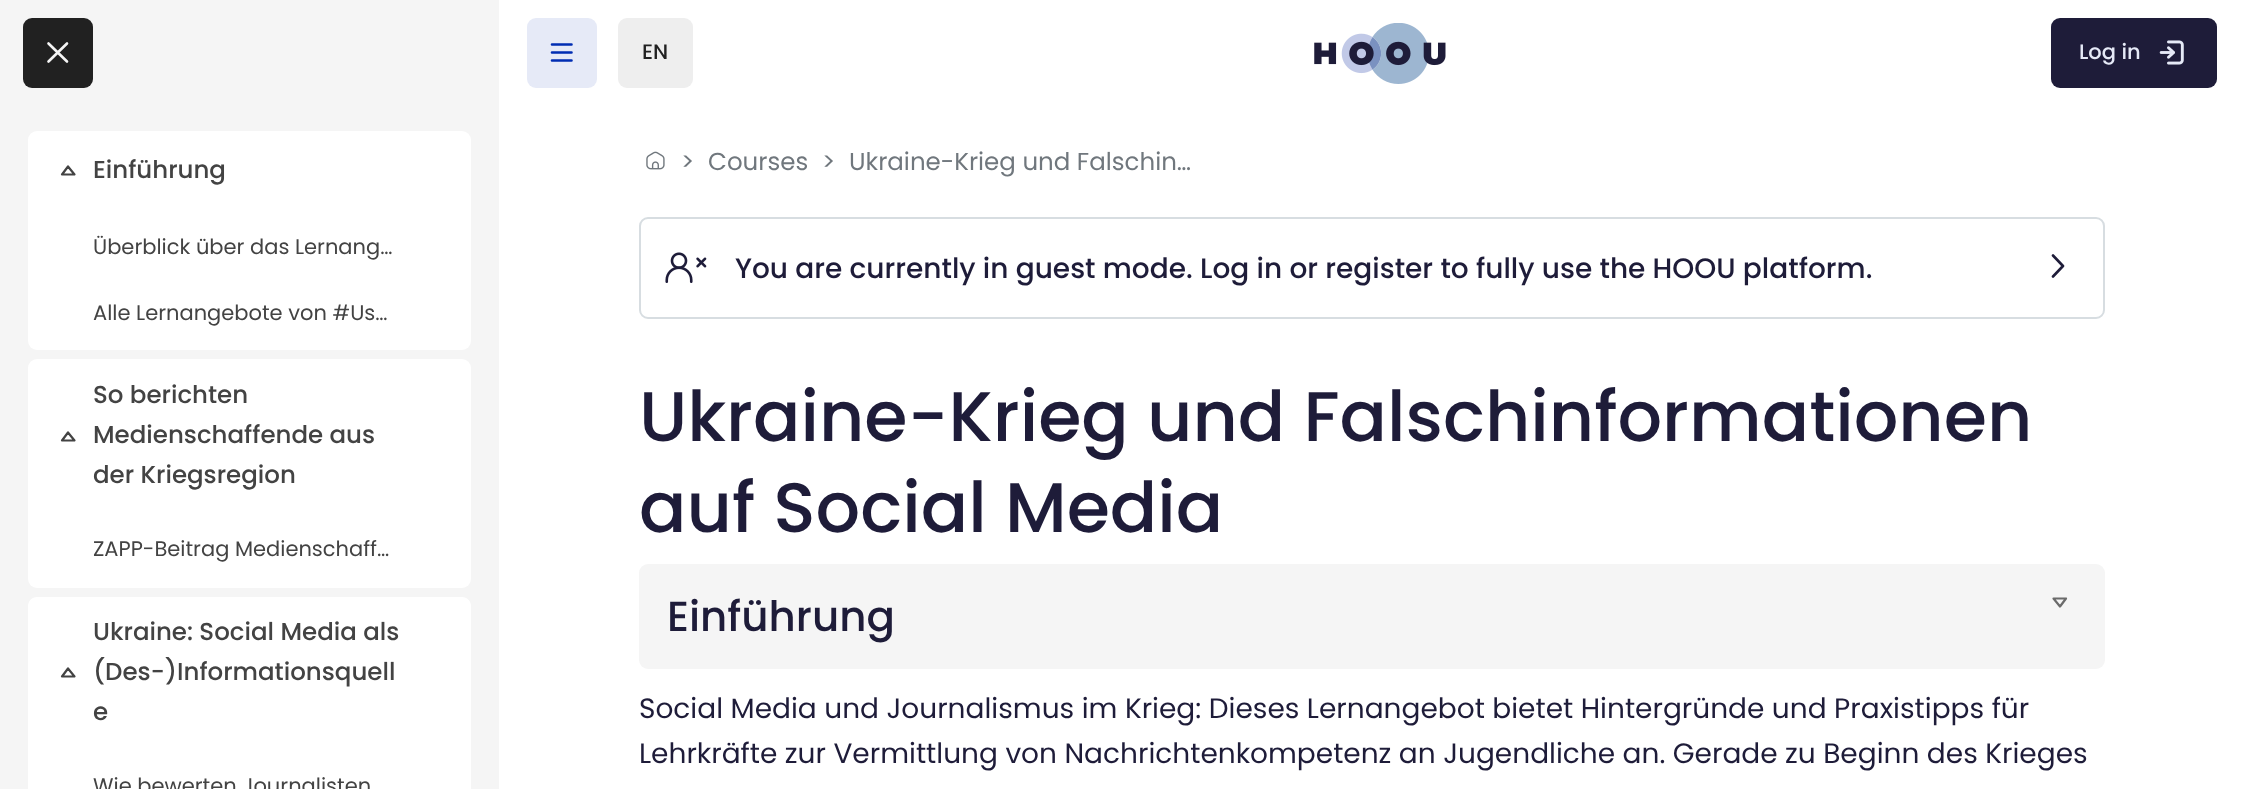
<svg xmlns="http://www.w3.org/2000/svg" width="2244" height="789">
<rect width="100%" height="100%" fill="#fff"/>
<rect x="527" y="18" width="70" height="70" rx="9" fill="#e6eaf7"/>
<path d="M552 44.5h19.5m-19.5 16h19.5m-19.5-8h19.5" fill="none" stroke="#002db3" stroke-width="2.6" stroke-linecap="round" stroke-linejoin="round"/>
<image x="1314" y="23" width="132" height="61" href="media/1.png"/>
<rect x="618" y="18" width="75" height="70" rx="9" fill="#eee"/>
<text x="642" y="59" style="font-family:Poppins;font-size:21px;font-weight:500;fill:#212121">EN</text>
<rect x="2051" y="18" width="166" height="70" rx="9" fill="#1e1c39"/>
<text x="2079" y="59" style="font-family:Poppins;font-size:21px;font-weight:500;fill:#e6eaf7">Log in</text>
<image x="2159" y="40" width="25" height="25" href="media/2.png"/>
<rect width="499" height="789" fill="#f5f5f5"/>
<rect x="23" y="18" width="70" height="70" rx="9" fill="#212121"/>
<path d="M67 43.5l-18.5 18m0-18l18.5 18" fill="none" stroke="#f5f5f5" stroke-width="2.6" stroke-linecap="round" stroke-linejoin="round"/>
<rect x="28" y="131" width="443" height="219" rx="9" fill="#fff"/>
<path d="M68 166.5l6.5 8h-12.5z" fill="none" stroke="#434343" stroke-width="2.2" stroke-linecap="round" stroke-linejoin="round"/>
<text x="93" y="178" style="font-family:Poppins;font-size:24.5px;font-weight:500;fill:#434343">Einführung</text>
<text x="93" y="254" style="font-family:Poppins;font-size:21px;fill:#434343">Überblick über das Lernang…</text>
<text x="93" y="320" style="font-family:Poppins;font-size:21px;fill:#434343">Alle Lernangebote von #Us…</text>
<rect x="28" y="359" width="443" height="229" rx="9" fill="#fff"/>
<path d="M68 432.5l6.5 8h-12.5z" fill="none" stroke="#434343" stroke-width="2.2" stroke-linecap="round" stroke-linejoin="round"/>
<text x="93" y="403" style="font-family:Poppins;font-size:24.5px;font-weight:500;fill:#434343">So berichten</text>
<text x="93" y="443" style="font-family:Poppins;font-size:24.5px;font-weight:500;fill:#434343">Medienschaffende aus</text>
<text x="93" y="483" style="font-family:Poppins;font-size:24.5px;font-weight:500;fill:#434343">der Kriegsregion</text>
<text x="93" y="556" style="font-family:Poppins;font-size:21px;fill:#434343">ZAPP-Beitrag Medienschaff…</text>
<path d="M37 597h425c5 0 9 4 9 9v183h-443v-183c0-5 4-9 9-9z" fill="#fff"/>
<path d="M68 668.5l6.5 8h-12.5z" fill="none" stroke="#434343" stroke-width="2.2" stroke-linecap="round" stroke-linejoin="round"/>
<text x="93" y="640" style="font-family:Poppins;font-size:24.5px;font-weight:500;fill:#434343">Ukraine: Social Media als</text>
<text x="93" y="680" style="font-family:Poppins;font-size:24.5px;font-weight:500;fill:#434343">(Des-)Informationsquell</text>
<text x="93" y="720" style="font-family:Poppins;font-size:24.5px;font-weight:500;fill:#434343">e</text>
<text x="93" y="793" style="font-family:Poppins;font-size:21px;fill:#434343">Wie bewerten Journalisten</text>
<image x="646" y="151" width="19" height="19" href="media/3.png"/>
<text x="681" y="170" style="font-family:Poppins;font-size:24.5px;fill:#70777d">&gt;</text>
<text x="708" y="170" style="font-family:Poppins;font-size:24.5px;fill:#70777d">Courses</text>
<text x="822" y="170" style="font-family:Poppins;font-size:24.5px;fill:#70777d">&gt;</text>
<text x="849" y="170" style="font-family:Poppins;font-size:24.5px;fill:#70777d">Ukraine-Krieg und Falschin…</text>
<rect x="640" y="218" width="1464" height="100" rx="8" fill="none" stroke="#d7dde1" stroke-width="2"/>
<image x="665" y="252" width="42" height="31" href="media/4.png"/>
<text x="735" y="278" style="font-family:Poppins;font-size:28px;font-weight:500;fill:#1e1c39">You are currently in guest mode. Log in or register to fully use the HOOU platform.</text>
<path d="M2053 255.5l10 10.5l-10 10.5" fill="none" stroke="#1e1c39" stroke-width="2.6" stroke-linecap="round" stroke-linejoin="round"/>
<text x="639" y="441" style="font-family:Poppins;font-size:70px;font-weight:500;fill:#1e1c39">Ukraine-Krieg und Falschinformationen</text>
<text x="639" y="532" style="font-family:Poppins;font-size:70px;font-weight:500;fill:#1e1c39">auf Social Media</text>
<rect x="639" y="564" width="1466" height="105" rx="9" fill="#f5f5f5"/>
<text x="667" y="631" style="font-family:Poppins;font-size:42px;font-weight:500;fill:#1e1c39">Einführung</text>
<path d="M2060 606.5l6-8h-12.5z" fill="none" stroke="#6b6b6b" stroke-width="2.2" stroke-linecap="round" stroke-linejoin="round"/>
<text x="639" y="718" style="font-family:Poppins;font-size:28px;fill:#1e1c39">Social Media und Journalismus im Krieg: Dieses Lernangebot bietet Hintergründe und Praxistipps für</text>
<text x="639" y="763" style="font-family:Poppins;font-size:28px;fill:#1e1c39">Lehrkräfte zur Vermittlung von Nachrichtenkompetenz an Jugendliche an. Gerade zu Beginn des Krieges</text>
</svg>
